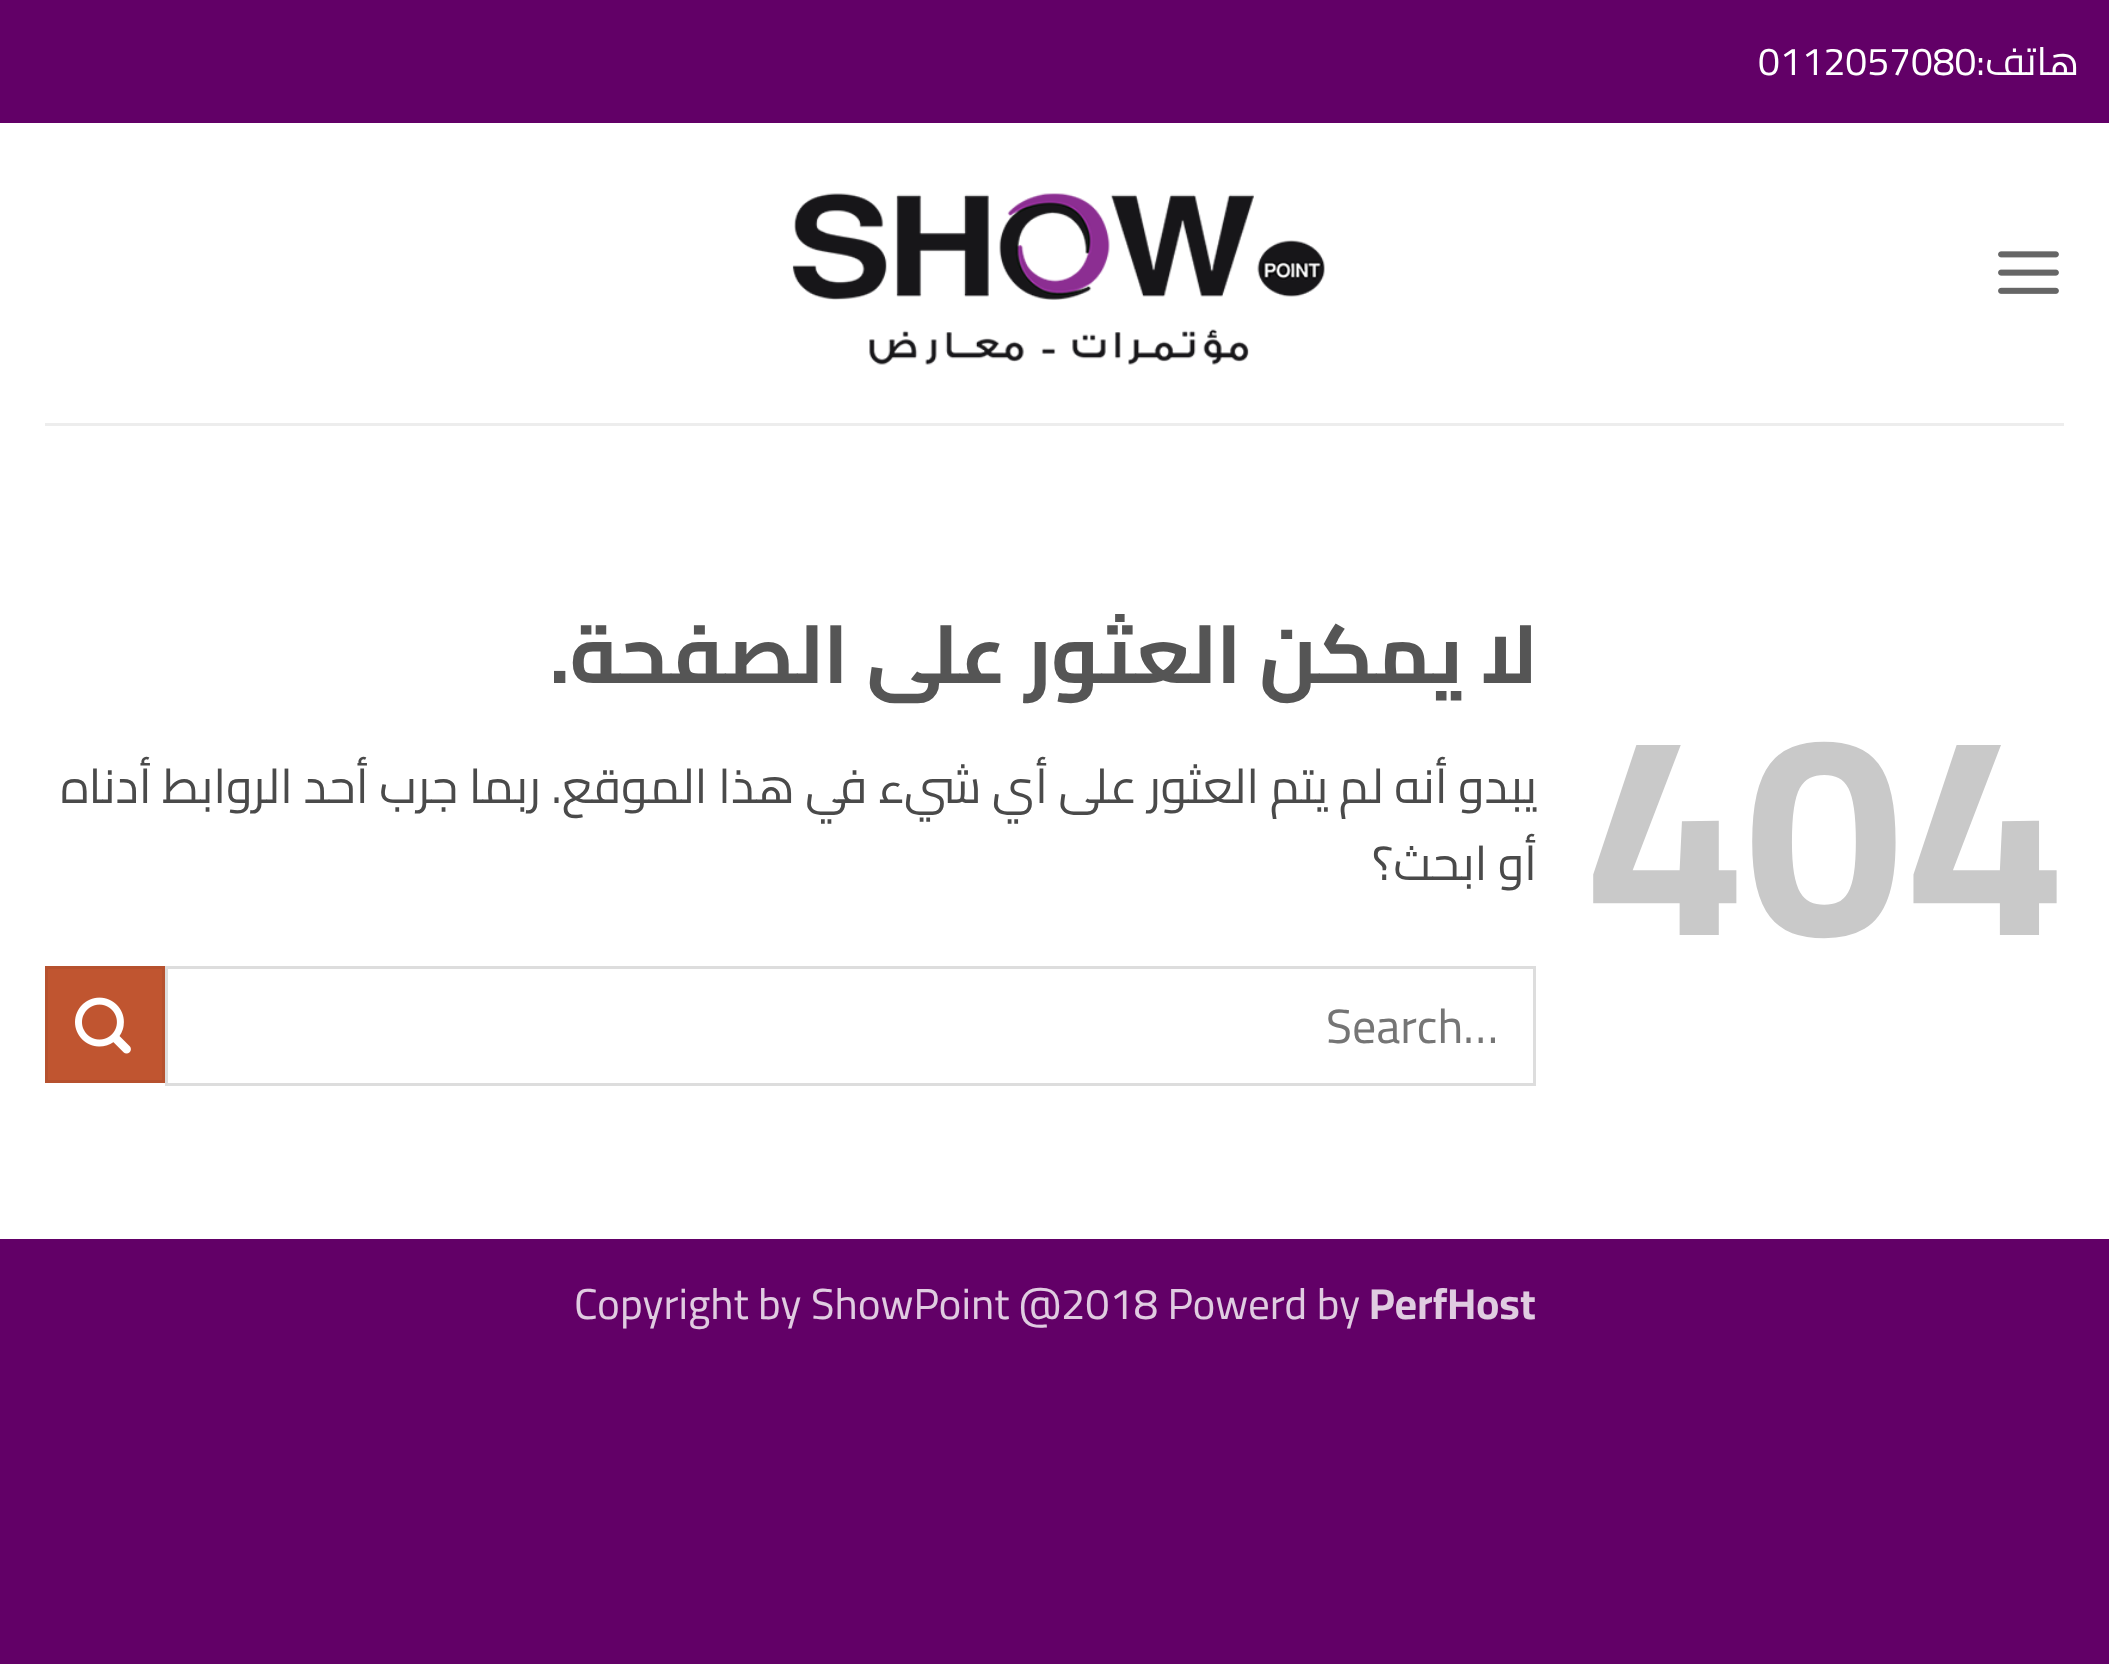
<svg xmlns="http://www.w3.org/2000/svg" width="2109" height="1664">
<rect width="100%" height="100%" fill="#620067"/>
<rect y="123" width="2109" height="1116" fill="#fff"/>
<text x="2079" y="75" style="font-family:Cairo;font-size:39px;direction:rtl;fill:#fff">هاتف:</text>
<text x="1758" y="75" style="font-family:Cairo;font-size:39px;fill:#fff">0112057080</text>
<image x="1998" y="251" width="61" height="43" href="media/1.png"/>
<image x="792" y="193" width="533" height="172" href="media/2.png"/>
<rect x="45" y="423" width="2019" height="3" fill="#ededed"/>
<text x="1584" y="935" style="font-family:Cairo;font-size:288px;font-weight:bold;fill:#c9c9c9">404</text>
<text x="1537" y="683" style="font-family:Cairo;font-size:81.6px;font-weight:bold;direction:rtl;fill:#555">لا يمكن العثور على الصفحة.</text>
<text x="1537" y="803" style="font-family:Cairo;font-size:48px;direction:rtl;fill:#4a4a4a">يبدو أنه لم يتم العثور على أي شيء في هذا الموقع. ربما جرب أحد الروابط أدناه</text>
<text x="1537" y="880" style="font-family:Cairo;font-size:48px;direction:rtl;fill:#4a4a4a">أو ابحث؟</text>
<rect x="166.5" y="967.5" width="1368" height="117" fill="none" stroke="#ddd" stroke-width="3"/>
<text x="1326" y="1043" style="font-family:Cairo;font-size:48px;fill:#757575">Search…</text>
<rect x="46.5" y="967.5" width="117" height="114" fill="#c05530" stroke="#b6512e" stroke-width="3"/>
<image x="75" y="997" width="56" height="57" href="media/3.png"/>
<text x="1369" y="1319" style="font-family:Cairo;font-size:43.25px;font-weight:bold;fill:#e0cce1">PerfHost</text>
<text x="574" y="1319" style="font-family:Cairo;font-size:43.25px;fill:#e0cce1">Copyright by ShowPoint @2018 Powerd by</text>
</svg>
